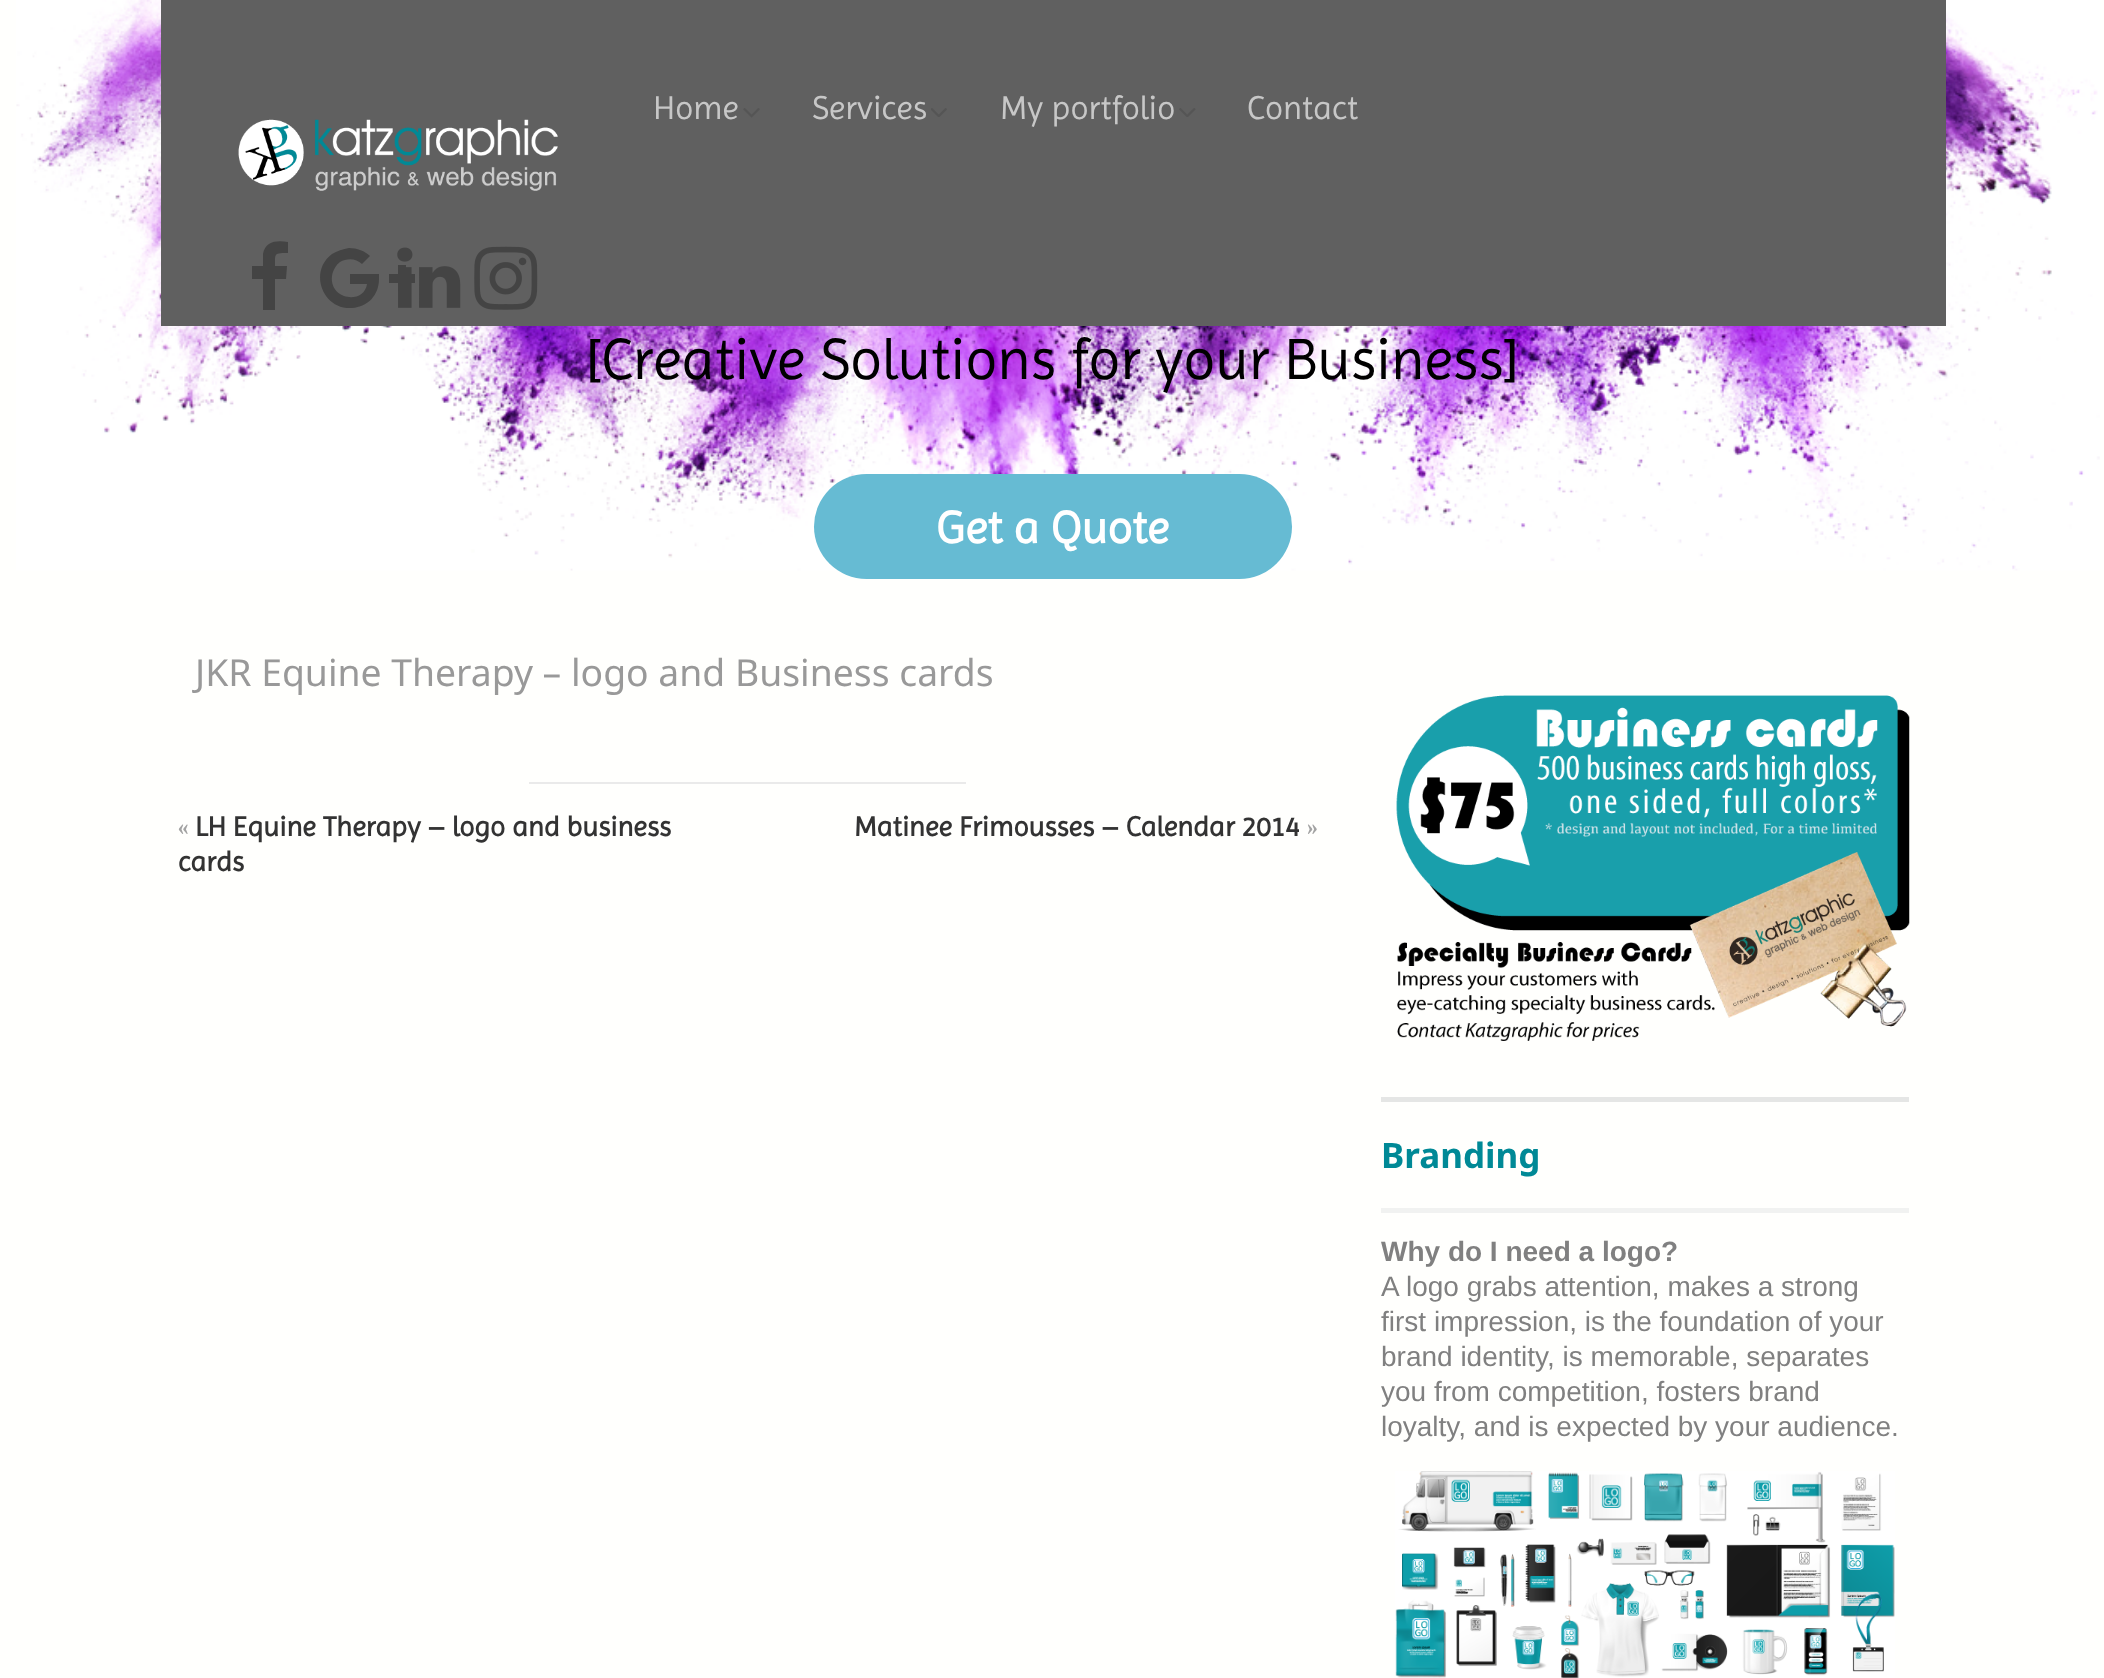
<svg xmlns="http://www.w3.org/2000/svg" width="2104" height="1678">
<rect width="100%" height="100%" fill="#fffffd"/>
<image x="16" y="0" width="2084" height="571" href="media/1.png"/>
<rect x="161" width="1785" height="326" fill="#606060"/>
<text x="653" y="119" style="font-family:Imprima;font-size:33.5px;fill:#c7c7c7">Home</text>
<image x="743" y="108" width="17" height="10" href="media/2.png"/>
<text x="812" y="119" style="font-family:Imprima;font-size:33.5px;fill:#c7c7c7">Services</text>
<image x="931" y="108" width="16" height="9" href="media/3.png"/>
<text x="1000" y="119" style="font-family:Imprima;font-size:33.5px;fill:#c7c7c7">My portfolio</text>
<image x="1179" y="108" width="17" height="9" href="media/4.png"/>
<text x="1247" y="119" style="font-family:Imprima;font-size:33.5px;fill:#c7c7c7">Contact</text>
<image x="238" y="119" width="320" height="72" href="media/5.png"/>
<path d="M288 242v11c-14 0-13 0-13 13h12l-1 13h-11v31h-12v-31h-11v-13h11v-12c2-13 14-14 25-12z" fill="#444"/>
<path d="M379 279c0 16-11 28-27 29c-29 2-44-36-20-54c5-3 11-5 17-6c8 0 16 3 21 8l-8 8c-6-6-15-6-22-2c-4 3-7 8-8 14c-3 24 32 29 35 8h-17v-10h29zm36-5v9h-9v8h-8v-8h-9v-9h9v-9h8v9z" fill="#444"/>
<image x="397" y="247" width="64" height="61" href="media/6.png"/>
<image x="474" y="246" width="64" height="64" href="media/7.png"/>
<text x="585" y="379" style="font-family:Imprima;font-size:58.75px;fill:#000">[Creative Solutions for your Business]</text>
<rect x="814" y="474" width="478" height="105" rx="52.5" fill="#66bbd3"/>
<text x="936" y="543" style="font-family:Imprima;font-size:45.5px;font-weight:bold;fill:#fff">Get a Quote</text>
<text x="195" y="686" style="font-family:Noto Sans;font-size:37.3px;fill:#999">JKR Equine Therapy – logo and Business cards</text>
<rect x="529" y="782" width="437" height="2" fill="#eaeaea"/>
<text x="178" y="836" style="font-family:Imprima;font-size:28px;fill:#a3a3a3">«</text>
<text x="195" y="836" style="font-family:Imprima;font-size:28px;font-weight:bold;fill:#333">LH Equine Therapy – logo and business</text>
<text x="178" y="871" style="font-family:Imprima;font-size:28px;font-weight:bold;fill:#333">cards</text>
<text x="854" y="836" style="font-family:Imprima;font-size:28px;font-weight:bold;fill:#333">Matinee Frimousses – Calendar 2014</text>
<text x="1307" y="836" style="font-family:Imprima;font-size:28px;fill:#a3a3a3">»</text>
<image x="1396" y="695" width="514" height="346" href="media/8.png"/>
<rect x="1381" y="1097" width="528" height="5" fill="#e5e6e5"/>
<rect x="1381" y="1208" width="528" height="5" fill="#f1f2f1"/>
<text x="1381" y="1168" style="font-family:Noto Sans;font-size:35px;font-weight:bold;fill:#008996">Branding</text>
<text x="1381" y="1261" style="font-family:Liberation Sans;font-size:28px;font-weight:bold;fill:#808080">Why do I need a logo?</text>
<text x="1381" y="1296" style="font-family:Liberation Sans;font-size:28px;fill:#808080">A logo grabs attention, makes a strong</text>
<text x="1381" y="1331" style="font-family:Liberation Sans;font-size:28px;fill:#808080">first impression, is the foundation of your</text>
<text x="1381" y="1366" style="font-family:Liberation Sans;font-size:28px;fill:#808080">brand identity, is memorable, separates</text>
<text x="1381" y="1401" style="font-family:Liberation Sans;font-size:28px;fill:#808080">you from competition, fosters brand</text>
<text x="1381" y="1436" style="font-family:Liberation Sans;font-size:28px;fill:#808080">loyalty, and is expected by your audience.</text>
<image x="1395" y="1471" width="500" height="207" href="media/9.png"/>
</svg>
